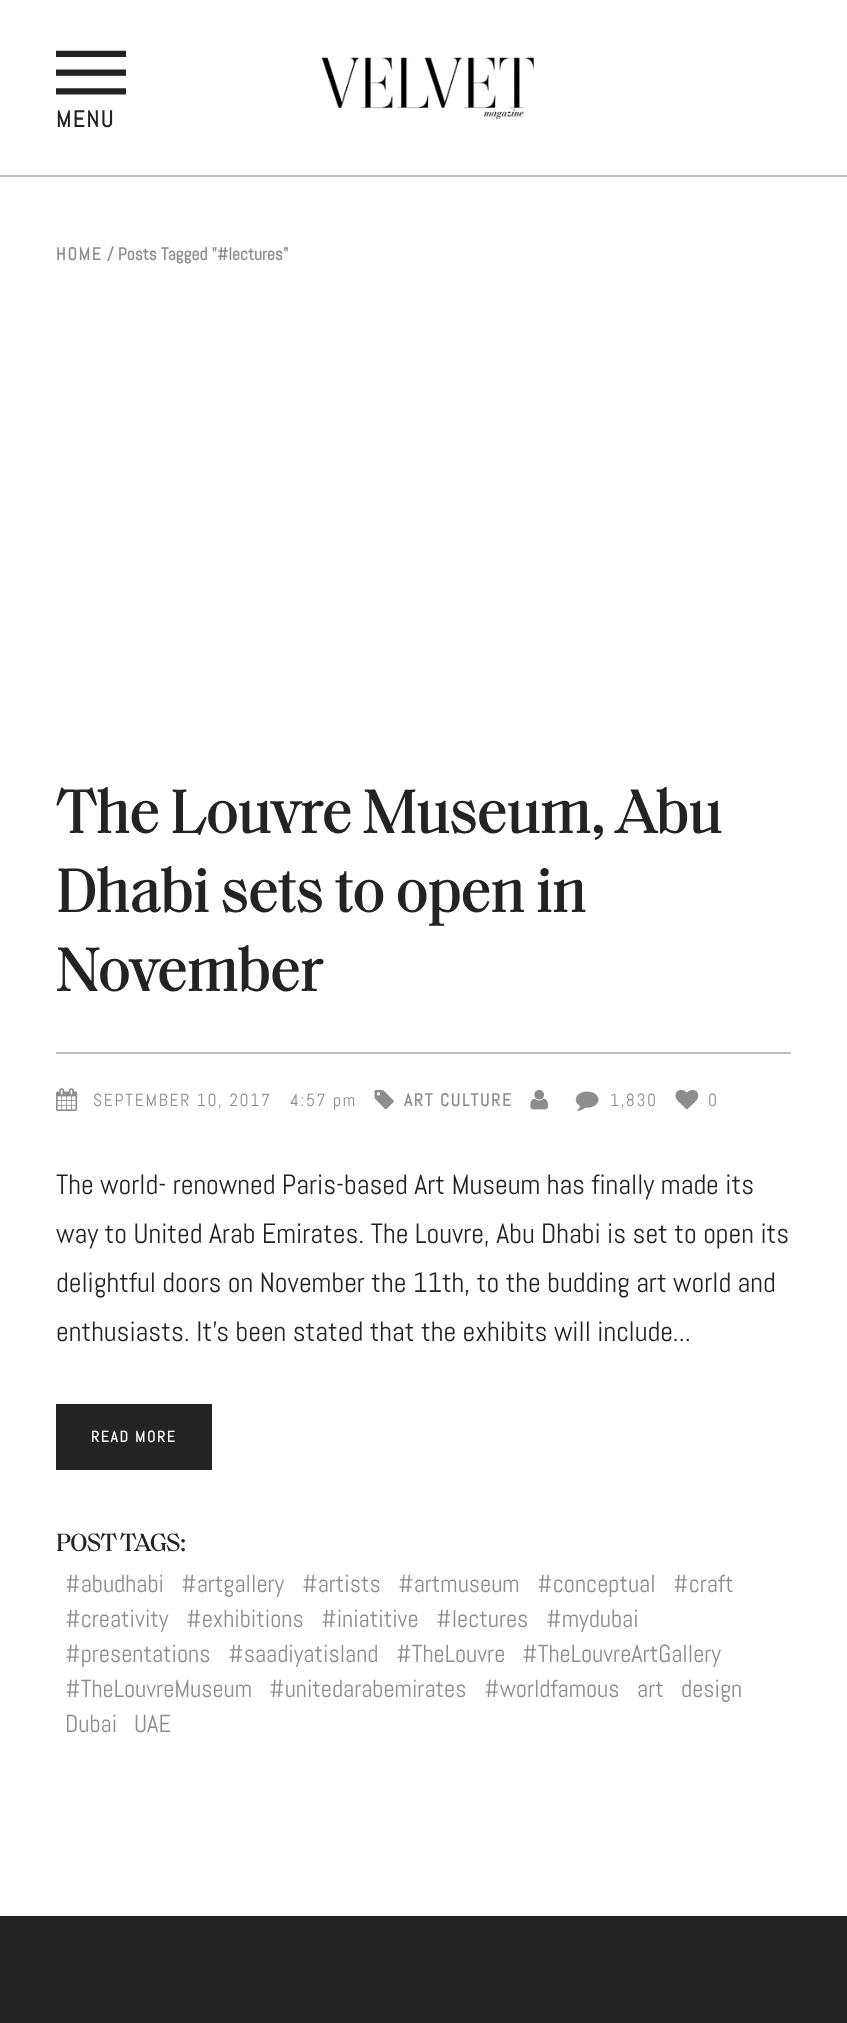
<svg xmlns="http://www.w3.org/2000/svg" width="847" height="2023">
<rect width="100%" height="100%" fill="#fff"/>
<rect y="175" width="847" height="2" fill="#bcc0c4"/>
<image x="56" y="50" width="70" height="45" href="media/1.png"/>
<text x="56" y="127" style="font-family:Abel;font-size:23px;font-weight:bold;letter-spacing:1.75px;fill:#232323">MENU</text>
<image x="319" y="57" width="215" height="62" href="media/2.png"/>
<text x="56" y="260" style="font-family:Abel;font-size:17.5px;font-weight:bold;letter-spacing:1.75px;fill:#8d8d8d">HOME</text>
<text x="107" y="260" style="font-family:Abel;font-size:17.5px;font-weight:bold;fill:#8d8d8d">/ Posts Tagged "#lectures"</text>
<text x="56" y="833" style="font-family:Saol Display;font-size:61.25px;font-weight:bold;fill:#232323">The Louvre Museum, Abu</text>
<text x="56" y="912" style="font-family:Saol Display;font-size:61.25px;font-weight:bold;fill:#232323">Dhabi sets to open in</text>
<text x="56" y="991" style="font-family:Saol Display;font-size:61.25px;font-weight:bold;fill:#232323">November</text>
<rect x="56" y="1052" width="735" height="2" fill="#bcc0c4"/>
<image x="56" y="1088" width="22" height="23" href="media/3.png"/>
<text x="93" y="1106" style="font-family:Abel;font-size:17.5px;letter-spacing:1.75px;fill:#8d8d8d">SEPTEMBER 10, 2017</text>
<text x="290" y="1106" style="font-family:Abel;font-size:17.5px;letter-spacing:1.75px;fill:#8d8d8d">4:57 pm</text>
<image x="374" y="1089" width="20" height="21" href="media/4.png"/>
<text x="404" y="1106" style="font-family:Abel;font-size:17.5px;font-weight:bold;letter-spacing:1.75px;fill:#8d8d8d">ART CULTURE</text>
<image x="530" y="1089" width="19" height="21" href="media/5.png"/>
<image x="575" y="1091" width="24" height="20" href="media/6.png"/>
<text x="610" y="1106" style="font-family:Abel;font-size:17.5px;letter-spacing:1.75px;fill:#8d8d8d">1,830</text>
<image x="675" y="1089" width="24" height="21" href="media/7.png"/>
<text x="708" y="1106" style="font-family:Abel;font-size:17.5px;letter-spacing:1.75px;fill:#8d8d8d">0</text>
<text x="56" y="1194" style="font-family:Abel;font-size:28px;fill:#232323">The world- renowned Paris-based Art Museum has finally made its</text>
<text x="56" y="1243" style="font-family:Abel;font-size:28px;fill:#232323">way to United Arab Emirates. The Louvre, Abu Dhabi is set to open its</text>
<text x="56" y="1292" style="font-family:Abel;font-size:28px;fill:#232323">delightful doors on November the 11th, to the budding art world and</text>
<text x="56" y="1341" style="font-family:Abel;font-size:28px;fill:#232323">enthusiasts. It’s been stated that the exhibits will include...</text>
<rect x="56" y="1404" width="156" height="66" fill="#232323"/>
<text x="91" y="1442" style="font-family:Abel;font-size:15.5px;font-weight:bold;letter-spacing:1.75px;fill:#fff">READ MORE</text>
<text x="56" y="1551" style="font-family:Saol Display;font-size:24.5px;font-weight:bold;fill:#232323">POST TAGS:</text>
<text x="65" y="1592" style="font-family:Abel;font-size:24.5px;fill:#8d8d8d">#abudhabi</text>
<text x="181" y="1592" style="font-family:Abel;font-size:24.5px;fill:#8d8d8d">#artgallery</text>
<text x="302" y="1592" style="font-family:Abel;font-size:24.5px;fill:#8d8d8d">#artists</text>
<text x="398" y="1592" style="font-family:Abel;font-size:24.5px;fill:#8d8d8d">#artmuseum</text>
<text x="537" y="1592" style="font-family:Abel;font-size:24.5px;fill:#8d8d8d">#conceptual</text>
<text x="673" y="1592" style="font-family:Abel;font-size:24.5px;fill:#8d8d8d">#craft</text>
<text x="65" y="1627" style="font-family:Abel;font-size:24.5px;fill:#8d8d8d">#creativity</text>
<text x="186" y="1627" style="font-family:Abel;font-size:24.5px;fill:#8d8d8d">#exhibitions</text>
<text x="321" y="1627" style="font-family:Abel;font-size:24.5px;fill:#8d8d8d">#iniatitive</text>
<text x="436" y="1627" style="font-family:Abel;font-size:24.5px;fill:#8d8d8d">#lectures</text>
<text x="546" y="1627" style="font-family:Abel;font-size:24.5px;fill:#8d8d8d">#mydubai</text>
<text x="65" y="1662" style="font-family:Abel;font-size:24.5px;fill:#8d8d8d">#presentations</text>
<text x="228" y="1662" style="font-family:Abel;font-size:24.5px;fill:#8d8d8d">#saadiyatisland</text>
<text x="396" y="1662" style="font-family:Abel;font-size:24.5px;fill:#8d8d8d">#TheLouvre</text>
<text x="522" y="1662" style="font-family:Abel;font-size:24.5px;fill:#8d8d8d">#TheLouvreArtGallery</text>
<text x="65" y="1697" style="font-family:Abel;font-size:24.5px;fill:#8d8d8d">#TheLouvreMuseum</text>
<text x="269" y="1697" style="font-family:Abel;font-size:24.5px;fill:#8d8d8d">#unitedarabemirates</text>
<text x="484" y="1697" style="font-family:Abel;font-size:24.5px;fill:#8d8d8d">#worldfamous</text>
<text x="637" y="1697" style="font-family:Abel;font-size:24.5px;fill:#8d8d8d">art</text>
<text x="681" y="1697" style="font-family:Abel;font-size:24.5px;fill:#8d8d8d">design</text>
<text x="65" y="1732" style="font-family:Abel;font-size:24.5px;fill:#8d8d8d">Dubai</text>
<text x="134" y="1732" style="font-family:Abel;font-size:24.5px;fill:#8d8d8d">UAE</text>
<rect y="1916" width="847" height="107" fill="#232323"/>
</svg>
